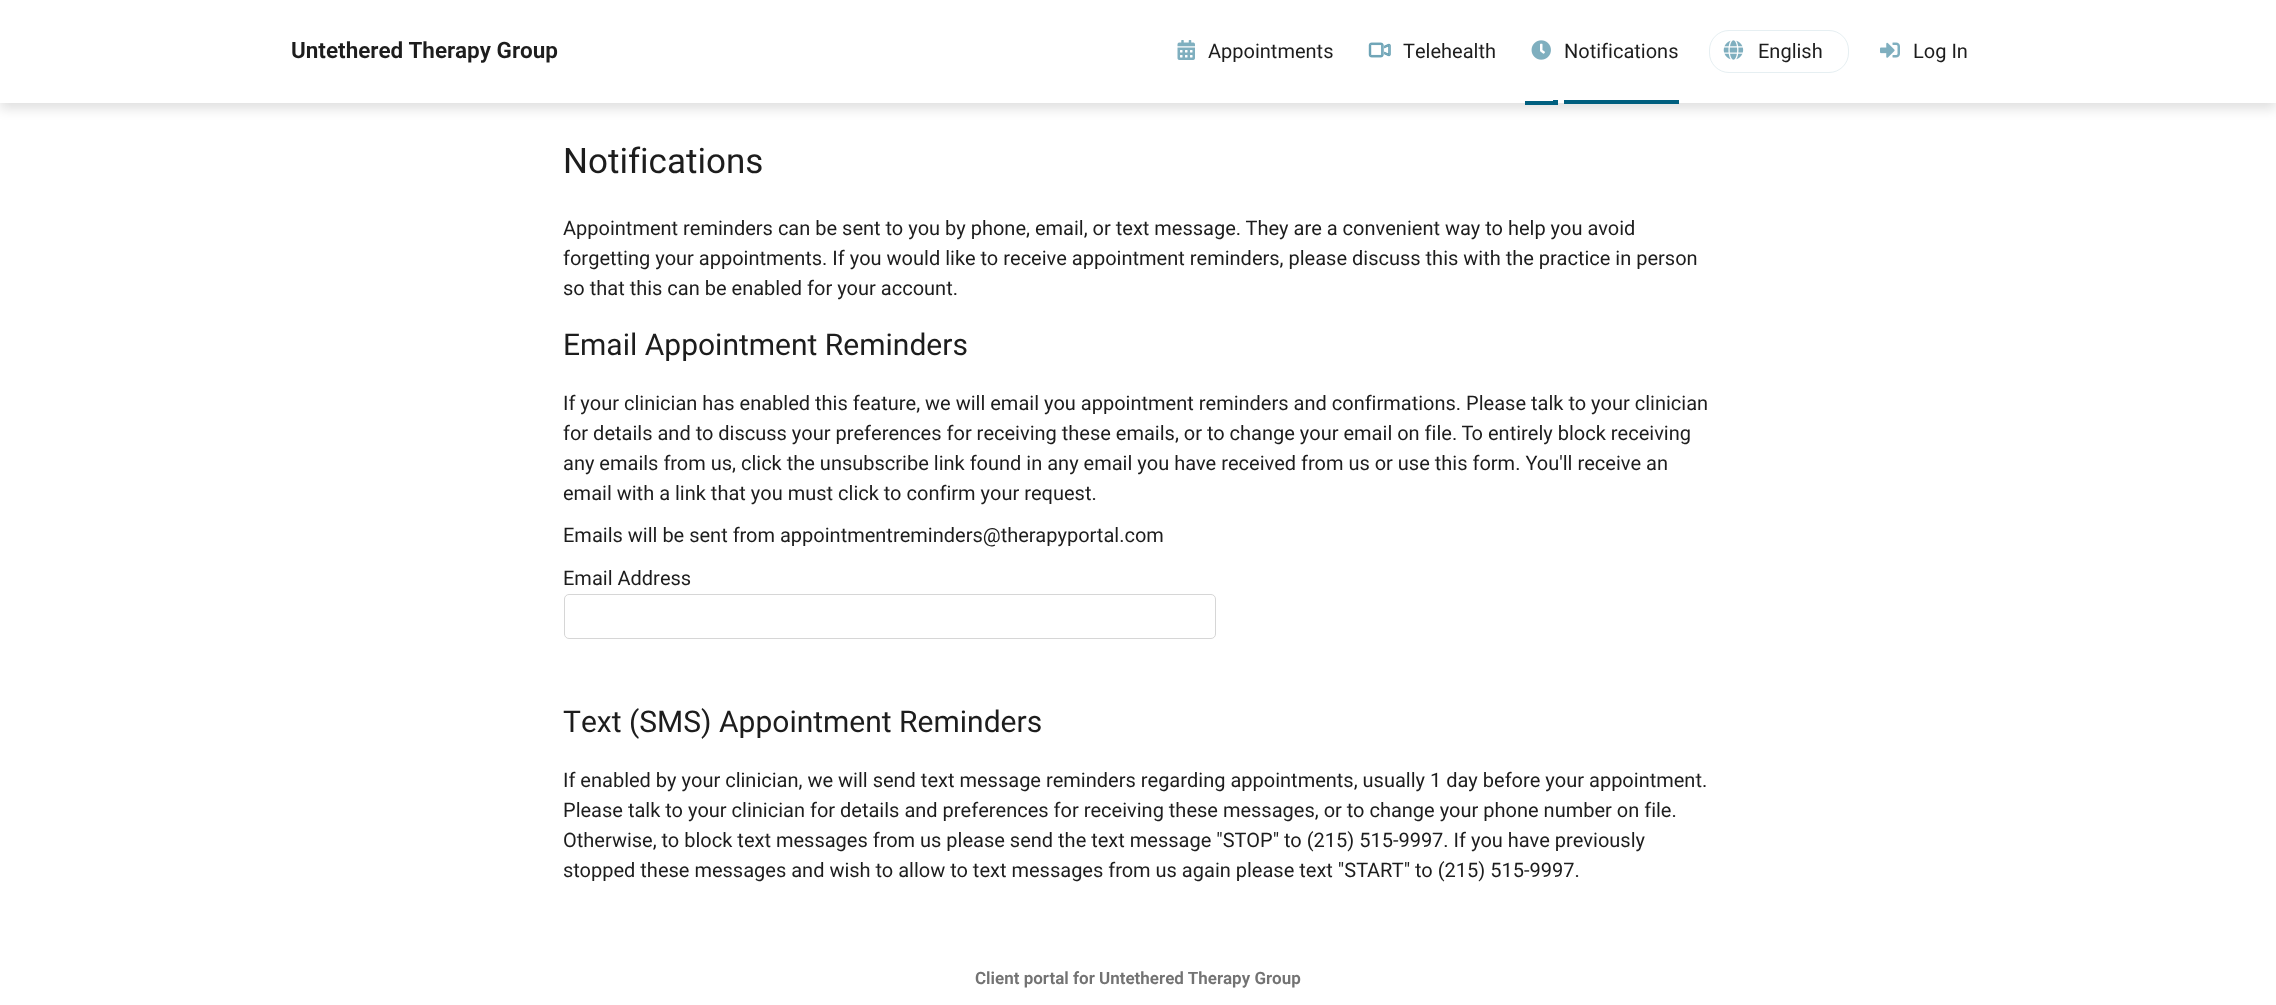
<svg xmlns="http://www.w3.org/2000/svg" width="2276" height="1005">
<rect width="100%" height="100%" fill="#fff"/>
<rect y="6" width="2276" height="103" fill="#0000001f" filter="blur(6px)"/>
<rect width="2276" height="103" fill="#fff"/>
<text x="291" y="58" style="font-family:Heebo;font-size:22.5px;font-weight:600;fill:#1d1d1d">Untethered Therapy Group</text>
<image x="1177" y="40" width="18" height="20" href="media/1.png"/>
<text x="1208" y="58" style="font-family:Heebo;font-size:20px;fill:#1d1d1d">Appointments</text>
<image x="1368" y="42" width="23" height="16" href="media/2.png"/>
<text x="1403" y="58" style="font-family:Heebo;font-size:20px;fill:#1d1d1d">Telehealth</text>
<rect x="1525" y="101" width="33" height="4" fill="#005f7f"/>
<rect x="1553" y="100" width="5" height="1" fill="#005f7f"/>
<rect x="1564" y="100" width="115" height="4" fill="#005f7f"/>
<image x="1531" y="40" width="20" height="20" href="media/3.png"/>
<text x="1564" y="58" style="font-family:Heebo;font-size:20px;fill:#1d1d1d">Notifications</text>
<rect x="1709.5" y="30.5" width="139" height="42" rx="19.5" fill="none" stroke="#e6eff2"/>
<image x="1723" y="40" width="21" height="20" href="media/4.png"/>
<text x="1758" y="58" style="font-family:Heebo;font-size:20px;fill:#1d1d1d">English</text>
<image x="1880" y="42" width="20" height="16" href="media/5.png"/>
<text x="1913" y="58" style="font-family:Heebo;font-size:20px;fill:#1d1d1d">Log In</text>
<text x="563" y="173" style="font-family:Heebo;font-size:35px;fill:#1d1d1d">Notifications</text>
<text x="563" y="235" style="font-family:Heebo;font-size:20px;fill:#1d1d1d">Appointment reminders can be sent to you by phone, email, or text message. They are a convenient way to help you avoid</text>
<text x="563" y="265" style="font-family:Heebo;font-size:20px;fill:#1d1d1d">forgetting your appointments. If you would like to receive appointment reminders, please discuss this with the practice in person</text>
<text x="563" y="295" style="font-family:Heebo;font-size:20px;fill:#1d1d1d">so that this can be enabled for your account.</text>
<text x="563" y="355" style="font-family:Heebo;font-size:30px;fill:#1d1d1d">Email Appointment Reminders</text>
<text x="563" y="410" style="font-family:Heebo;font-size:20px;fill:#1d1d1d">If your clinician has enabled this feature, we will email you appointment reminders and confirmations. Please talk to your clinician</text>
<text x="563" y="440" style="font-family:Heebo;font-size:20px;fill:#1d1d1d">for details and to discuss your preferences for receiving these emails, or to change your email on file. To entirely block receiving</text>
<text x="563" y="470" style="font-family:Heebo;font-size:20px;fill:#1d1d1d">any emails from us, click the unsubscribe link found in any email you have received from us or use this form. You'll receive an</text>
<text x="563" y="500" style="font-family:Heebo;font-size:20px;fill:#1d1d1d">email with a link that you must click to confirm your request.</text>
<text x="563" y="542" style="font-family:Heebo;font-size:20px;fill:#1d1d1d">Emails will be sent from appointmentreminders@therapyportal.com</text>
<text x="563" y="585" style="font-family:Heebo;font-size:20px;fill:#1d1d1d">Email Address</text>
<rect x="564.5" y="594.5" width="651" height="44" rx="4.5" fill="none" stroke="#d6d6d6"/>
<text x="563" y="732" style="font-family:Heebo;font-size:30px;fill:#1d1d1d">Text (SMS) Appointment Reminders</text>
<text x="563" y="787" style="font-family:Heebo;font-size:20px;fill:#1d1d1d">If enabled by your clinician, we will send text message reminders regarding appointments, usually 1 day before your appointment.</text>
<text x="563" y="817" style="font-family:Heebo;font-size:20px;fill:#1d1d1d">Please talk to your clinician for details and preferences for receiving these messages, or to change your phone number on file.</text>
<text x="563" y="847" style="font-family:Heebo;font-size:20px;fill:#1d1d1d">Otherwise, to block text messages from us please send the text message "STOP" to (215) 515-9997. If you have previously</text>
<text x="563" y="877" style="font-family:Heebo;font-size:20px;fill:#1d1d1d">stopped these messages and wish to allow to text messages from us again please text "START" to (215) 515-9997.</text>
<text x="975" y="984" style="font-family:Heebo;font-size:17px;font-weight:600;fill:#737373">Client portal for Untethered Therapy Group</text>
</svg>
